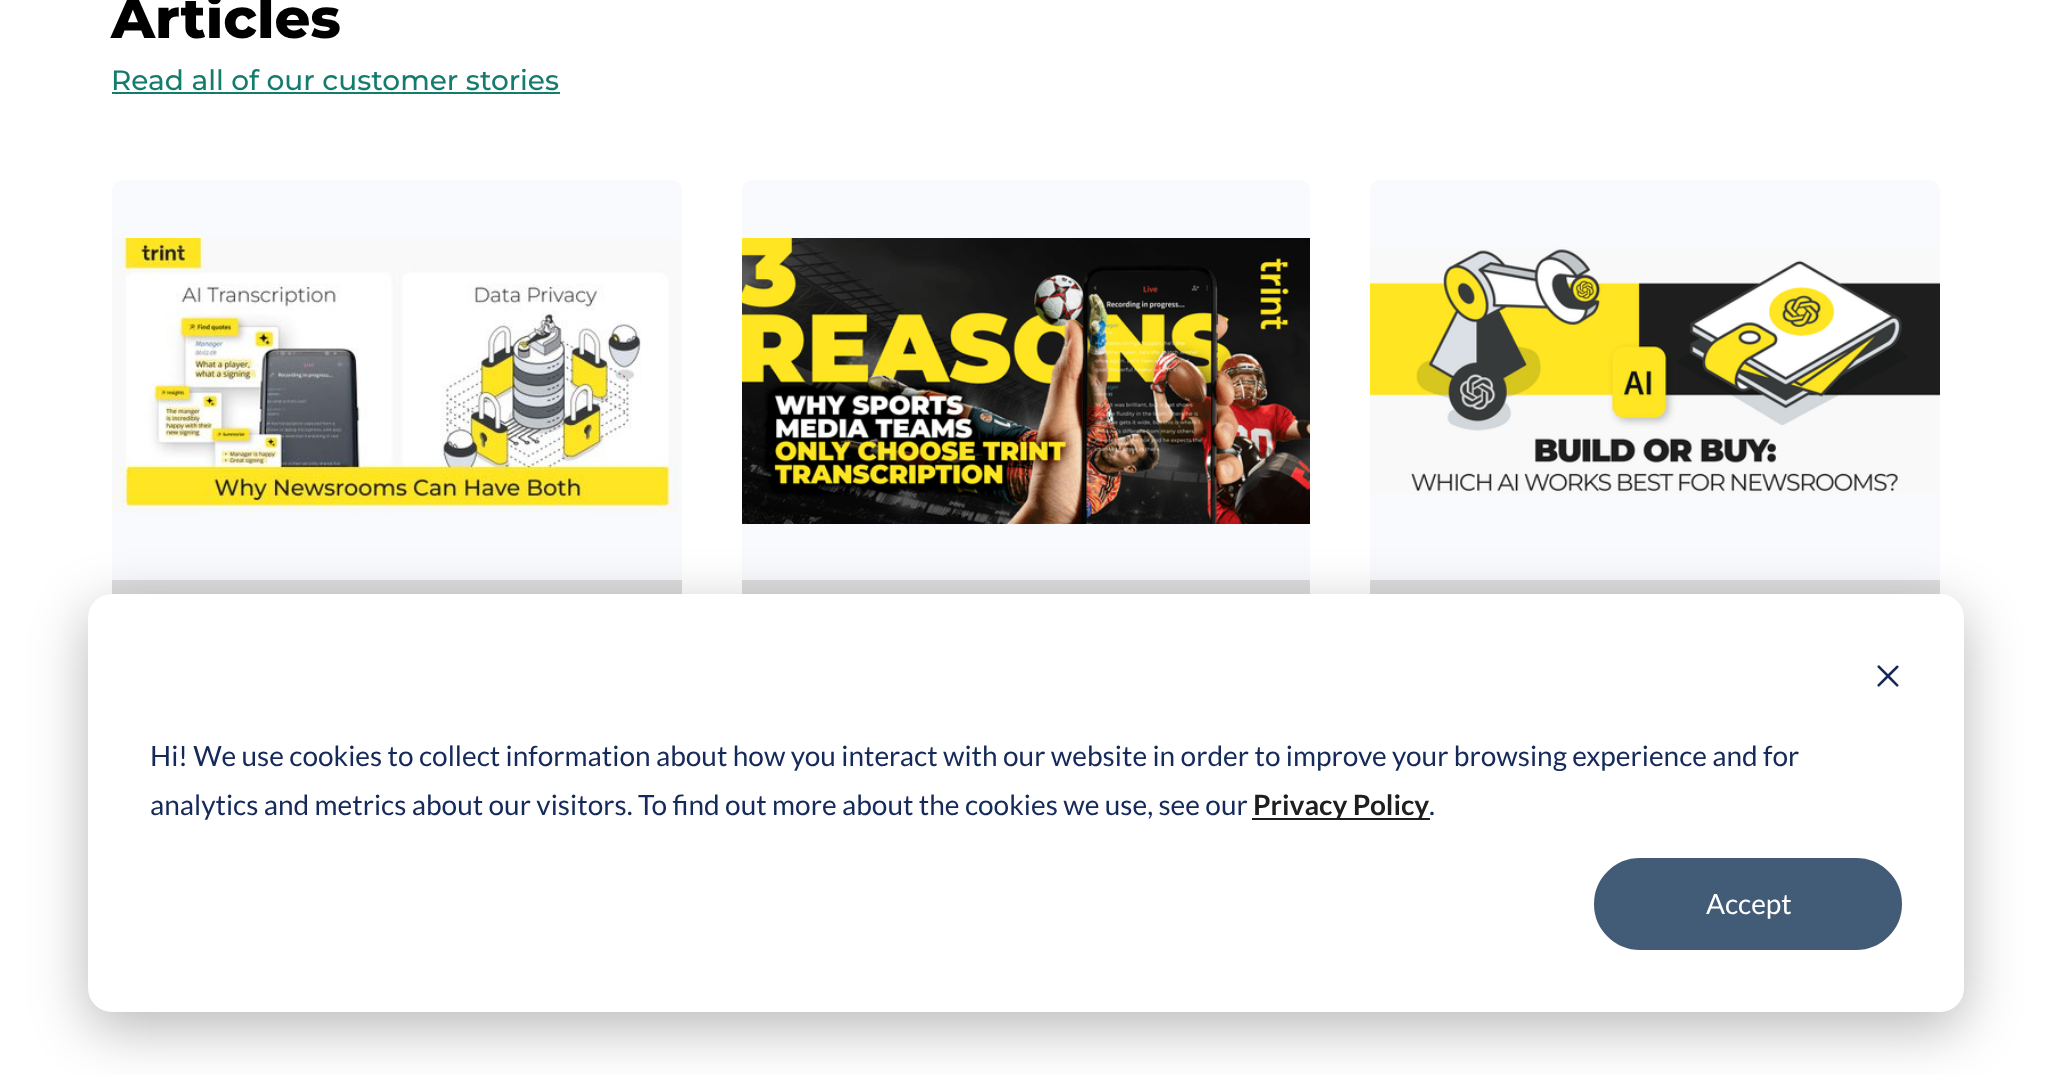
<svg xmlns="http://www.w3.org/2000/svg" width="2052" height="1075">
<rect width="100%" height="100%" fill="#fff"/>
<text x="111" y="38" style="font-family:Montserrat;font-size:56px;font-weight:800;fill:#000">Articles</text>
<text x="111" y="90" style="font-family:Montserrat;font-size:28px;font-weight:500;fill:#147c6d">Read all of our customer stories</text>
<rect x="112" y="92" width="448" height="2" fill="#147c6d"/>
<rect x="112" y="180" width="570" height="650" rx="10" fill="#f8fafd"/>
<image x="112" y="238" width="567" height="275" href="media/1.png"/>
<rect x="112" y="580" width="570" height="14" fill="#ddd"/>
<rect x="742" y="180" width="568" height="650" rx="10" fill="#f8fafd"/>
<image x="742" y="238" width="568" height="286" href="media/2.png"/>
<rect x="742" y="580" width="568" height="14" fill="#ddd"/>
<rect x="1370" y="180" width="570" height="650" rx="10" fill="#f8fafd"/>
<image x="1370" y="247" width="570" height="247" href="media/3.png"/>
<rect x="1370" y="580" width="570" height="14" fill="#ddd"/>
<rect x="88" y="610" width="1876" height="418" rx="24" fill="#00000047" filter="blur(28px)"/>
<rect x="88" y="594" width="1876" height="418" rx="24" fill="#fff"/>
<image x="1877" y="665" width="22" height="22" href="media/4.png"/>
<text x="150" y="766" style="font-family:Lato;font-size:28px;fill:#15295a">Hi! We use cookies to collect information about how you interact with our website in order to improve your browsing experience and for</text>
<text x="150" y="815" style="font-family:Lato;font-size:28px;fill:#15295a">analytics and metrics about our visitors. To find out more about the cookies we use, see our</text>
<rect x="1252" y="818" width="178" height="2" fill="#1e1e1e"/>
<text x="1253" y="815" style="font-family:Lato;font-size:28px;font-weight:bold;fill:#1e1e1e">Privacy Policy</text>
<text x="1429" y="815" style="font-family:Lato;font-size:28px;fill:#15295a">.</text>
<rect x="1595" y="859" width="306" height="90" rx="45" fill="#425b77" stroke="#425b77" stroke-width="2"/>
<text x="1706" y="914" style="font-family:Lato;font-size:28px;fill:#fff">Accept</text>
</svg>
